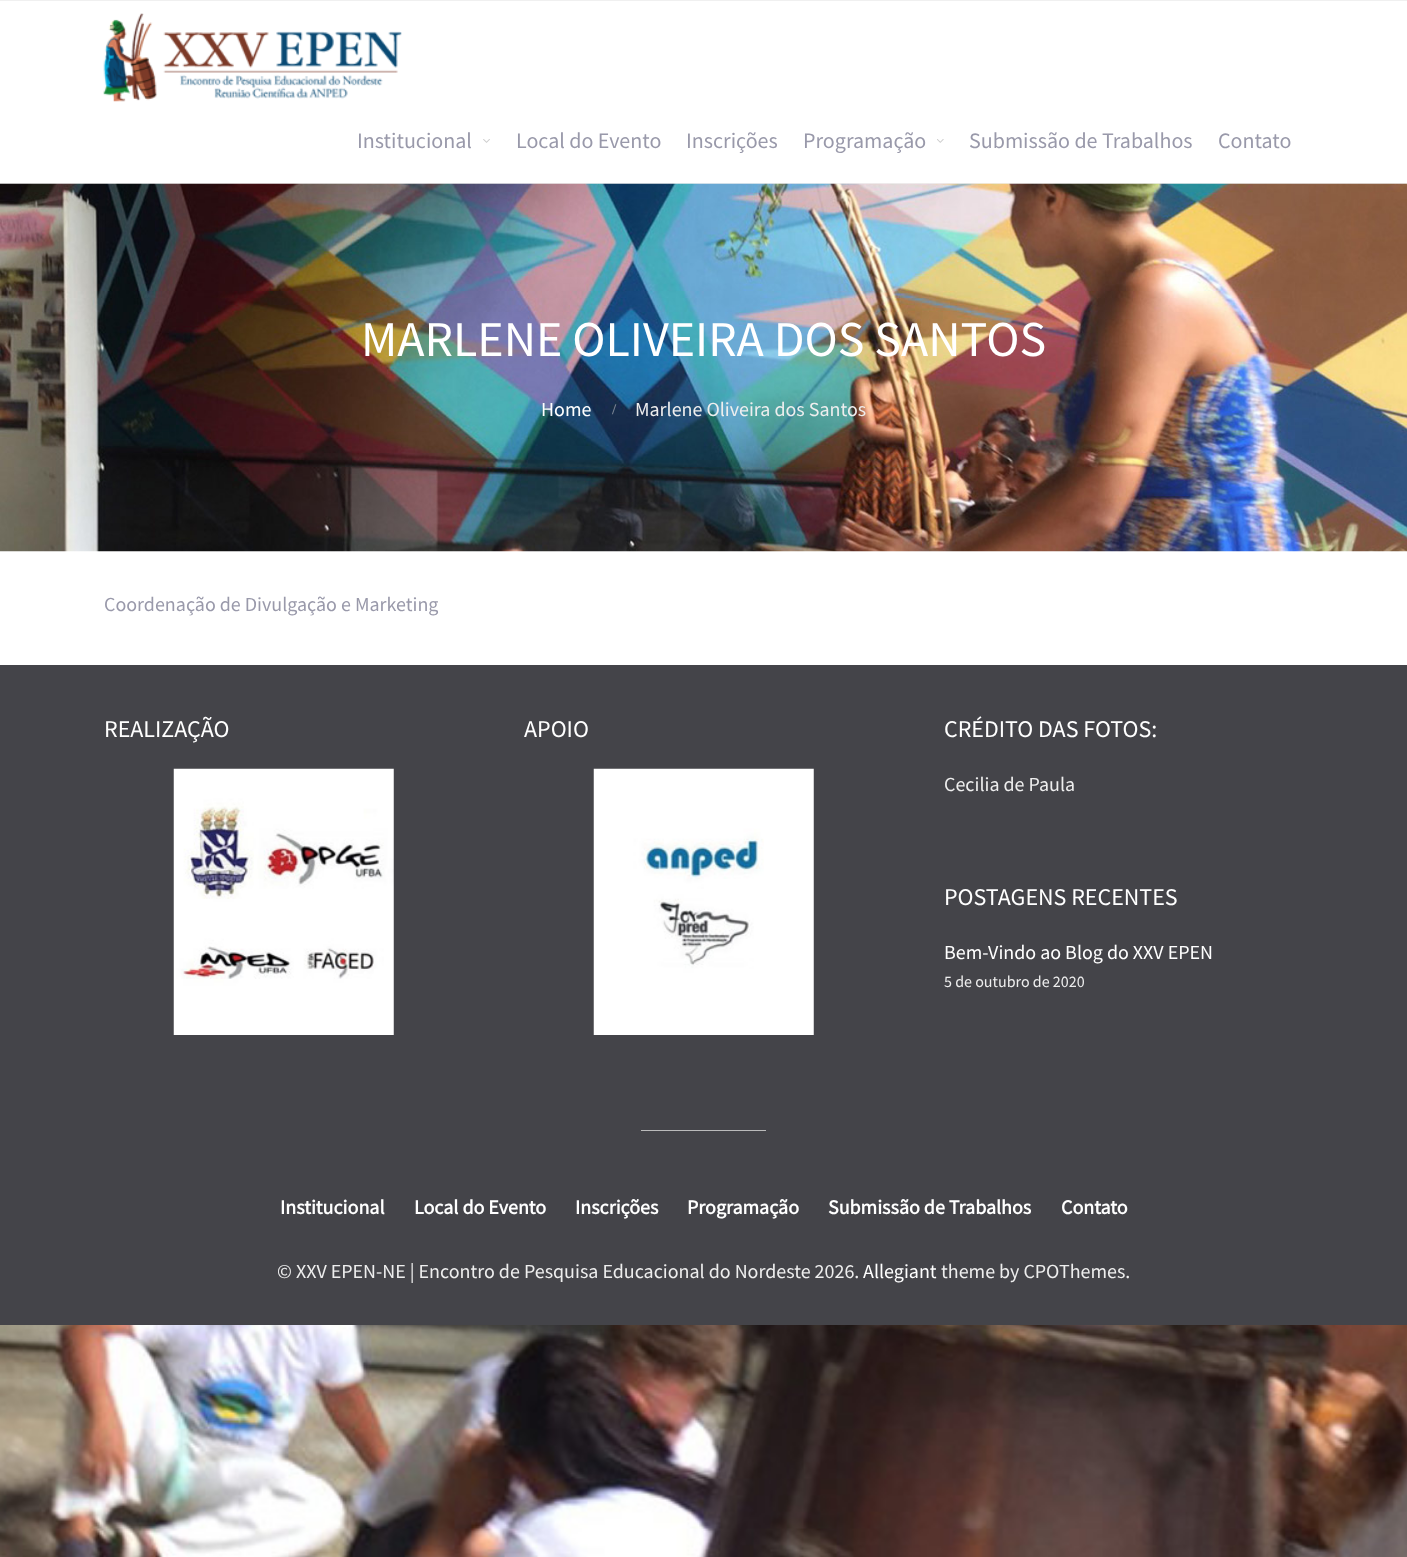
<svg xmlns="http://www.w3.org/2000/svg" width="1407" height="1557">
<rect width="100%" height="100%" fill="#fff"/>
<image x="0" y="1325" width="1407" height="232" href="media/1.png"/>
<rect width="1407" height="1" fill="#f0f0f0"/>
<rect y="183" width="1407" height="1" fill="#f0f0f0"/>
<image x="103" y="13" width="299" height="89" href="media/2.png"/>
<text x="357" y="148" style="font-family:Source Sans Pro;font-size:22px;fill:#99a">Institucional</text>
<image x="483" y="139" width="7" height="4" href="media/3.png"/>
<text x="516" y="148" style="font-family:Source Sans Pro;font-size:22px;fill:#99a">Local do Evento</text>
<text x="686" y="148" style="font-family:Source Sans Pro;font-size:22px;fill:#99a">Inscrições</text>
<text x="803" y="148" style="font-family:Source Sans Pro;font-size:22px;fill:#99a">Programação</text>
<image x="937" y="139" width="7" height="4" href="media/4.png"/>
<text x="969" y="148" style="font-family:Source Sans Pro;font-size:22px;fill:#99a">Submissão de Trabalhos</text>
<text x="1218" y="148" style="font-family:Source Sans Pro;font-size:22px;fill:#99a">Contato</text>
<image x="0" y="183" width="1407" height="369" href="media/5.png"/>
<text x="361" y="356" style="font-family:Source Sans Pro;font-size:50px;fill:#fff">MARLENE OLIVEIRA DOS SANTOS</text>
<text x="541" y="416" style="font-family:Source Sans Pro;font-size:20px;fill:#fff">Home</text>
<text x="612" y="414" style="font-family:Liberation Serif;font-size:15px;font-weight:bold;fill:#7b8594">/</text>
<text x="635" y="416" style="font-family:Source Sans Pro;font-size:20px;fill:#eee">Marlene Oliveira dos Santos</text>
<text x="104" y="611" style="font-family:Source Sans Pro;font-size:20px;fill:#99a">Coordenação de Divulgação e Marketing</text>
<rect y="665" width="1407" height="660" fill="#444449"/>
<text x="104" y="737" style="font-family:Source Sans Pro;font-size:24px;fill:#fff">REALIZAÇÃO</text>
<image x="173" y="768" width="221" height="267" href="media/6.png"/>
<text x="524" y="737" style="font-family:Source Sans Pro;font-size:24px;fill:#fff">APOIO</text>
<image x="593" y="768" width="221" height="267" href="media/7.png"/>
<text x="944" y="737" style="font-family:Source Sans Pro;font-size:24px;fill:#fff">CRÉDITO DAS FOTOS:</text>
<text x="944" y="791" style="font-family:Source Sans Pro;font-size:20px;fill:#eee">Cecilia de Paula</text>
<text x="944" y="905" style="font-family:Source Sans Pro;font-size:24px;fill:#fff">POSTAGENS RECENTES</text>
<text x="944" y="959" style="font-family:Source Sans Pro;font-size:20px;fill:#fff">Bem-Vindo ao Blog do XXV EPEN</text>
<text x="944" y="987" style="font-family:Source Sans Pro;font-size:16px;fill:#eee">5 de outubro de 2020</text>
<rect x="641" y="1130" width="125" height="1" fill="#bbb"/>
<text x="280" y="1214" style="font-family:Source Sans Pro;font-size:20px;font-weight:bold;fill:#fff">Institucional</text>
<text x="414" y="1214" style="font-family:Source Sans Pro;font-size:20px;font-weight:bold;fill:#fff">Local do Evento</text>
<text x="575" y="1214" style="font-family:Source Sans Pro;font-size:20px;font-weight:bold;fill:#fff">Inscrições</text>
<text x="687" y="1214" style="font-family:Source Sans Pro;font-size:20px;font-weight:bold;fill:#fff">Programação</text>
<text x="828" y="1214" style="font-family:Source Sans Pro;font-size:20px;font-weight:bold;fill:#fff">Submissão de Trabalhos</text>
<text x="1061" y="1214" style="font-family:Source Sans Pro;font-size:20px;font-weight:bold;fill:#fff">Contato</text>
<text x="277" y="1278" style="font-family:Source Sans Pro;font-size:20px;fill:#eee">© XXV EPEN-NE | Encontro de Pesquisa Educacional do Nordeste 2026.</text>
<text x="863" y="1278" style="font-family:Source Sans Pro;font-size:20px;fill:#fff">Allegiant</text>
<text x="941" y="1278" style="font-family:Source Sans Pro;font-size:20px;fill:#eee">theme by CPOThemes.</text>
</svg>
